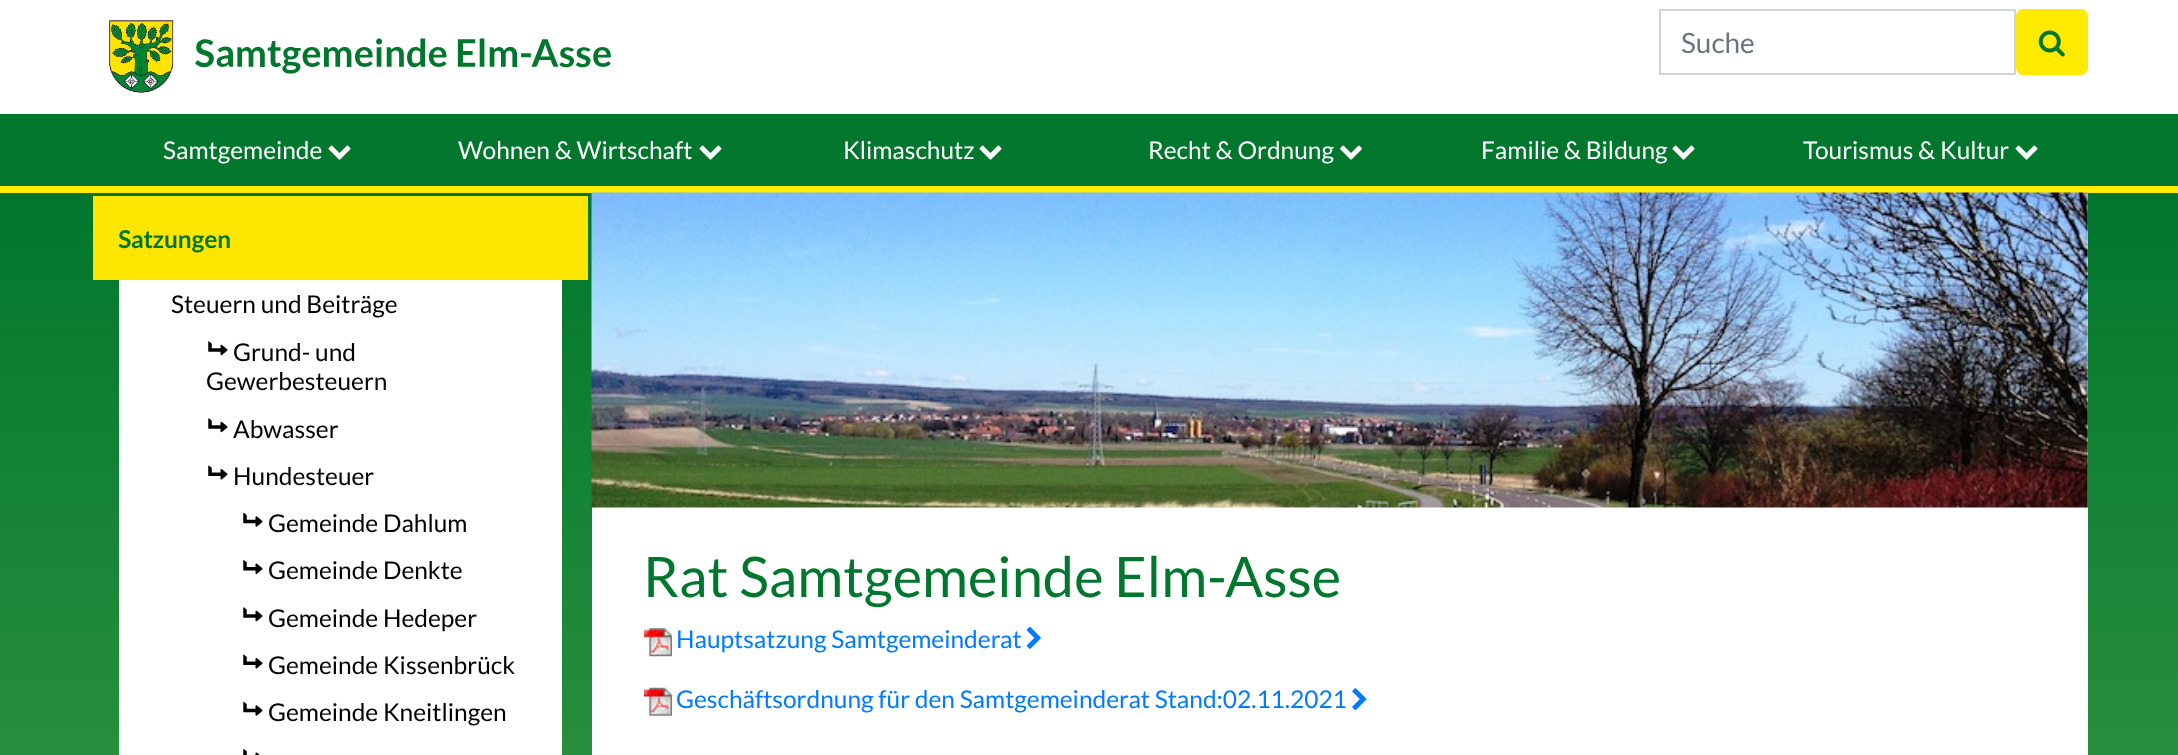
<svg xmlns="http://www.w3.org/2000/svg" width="2178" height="755">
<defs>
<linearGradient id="g1" gradientUnits="userSpaceOnUse" x1="1089" y1="192" x2="1089" y2="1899"><stop offset="0" stop-color="#00772d"/><stop offset="1" stop-color="#79bc5e"/></linearGradient>
</defs>
<rect width="100%" height="100%" fill="#fff"/>
<image x="109" y="20" width="502" height="73" href="media/1.png"/>
<rect x="1660" y="10" width="355" height="64" fill="none" stroke="#ced4da" stroke-width="2"/>
<text x="1681" y="53" style="font-family:Lato;font-size:28px;fill:#6c757d">Suche</text>
<rect x="2016" y="9" width="72" height="66" rx="7" fill="#ffea00"/>
<image x="2038" y="30" width="27" height="27" href="media/2.png"/>
<rect y="114" width="2178" height="72" fill="#00772d"/>
<rect y="186" width="2178" height="7" fill="#ffea00"/>
<text x="163" y="159" style="font-family:Lato;font-size:24.5px;fill:#fff">Samtgemeinde</text>
<image x="328" y="145" width="23" height="15" href="media/3.png"/>
<text x="458" y="159" style="font-family:Lato;font-size:24.5px;fill:#fff">Wohnen &amp; Wirtschaft</text>
<image x="699" y="145" width="23" height="15" href="media/3.png"/>
<text x="843" y="159" style="font-family:Lato;font-size:24.5px;fill:#fff">Klimaschutz</text>
<image x="979" y="145" width="23" height="15" href="media/3.png"/>
<text x="1148" y="159" style="font-family:Lato;font-size:24.5px;fill:#fff">Recht &amp; Ordnung</text>
<image x="1340" y="145" width="22" height="15" href="media/4.png"/>
<text x="1481" y="159" style="font-family:Lato;font-size:24.5px;fill:#fff">Familie &amp; Bildung</text>
<image x="1672" y="145" width="23" height="15" href="media/3.png"/>
<text x="1803" y="159" style="font-family:Lato;font-size:24.5px;fill:#fff">Tourismus &amp; Kultur</text>
<image x="2015" y="145" width="23" height="15" href="media/3.png"/>
<rect y="193" width="2178" height="562" fill="url(#g1)"/>
<rect x="93" y="196" width="495" height="84" fill="#fee600"/>
<text x="118" y="248" style="font-family:Lato;font-size:24.5px;font-weight:bold;fill:#00772d">Satzungen</text>
<rect x="119" y="280" width="443" height="475" fill="#fff"/>
<text x="171" y="313" style="font-family:Lato;font-size:24.5px;fill:#000">Steuern und Beiträge</text>
<image x="208" y="341" width="20" height="15" href="media/5.png"/>
<text x="233" y="361" style="font-family:Lato;font-size:24.5px;fill:#000">Grund- und</text>
<text x="206" y="390" style="font-family:Lato;font-size:24.5px;fill:#000">Gewerbesteuern</text>
<image x="208" y="418" width="20" height="15" href="media/5.png"/>
<text x="233" y="438" style="font-family:Lato;font-size:24.5px;fill:#000">Abwasser</text>
<image x="208" y="465" width="20" height="15" href="media/6.png"/>
<text x="233" y="485" style="font-family:Lato;font-size:24.5px;fill:#000">Hundesteuer</text>
<image x="243" y="512" width="20" height="15" href="media/7.png"/>
<text x="268" y="532" style="font-family:Lato;font-size:24.5px;fill:#000">Gemeinde Dahlum</text>
<image x="243" y="560" width="20" height="14" href="media/8.png"/>
<text x="268" y="579" style="font-family:Lato;font-size:24.5px;fill:#000">Gemeinde Denkte</text>
<image x="243" y="607" width="20" height="15" href="media/5.png"/>
<text x="268" y="627" style="font-family:Lato;font-size:24.5px;fill:#000">Gemeinde Hedeper</text>
<image x="243" y="654" width="20" height="15" href="media/6.png"/>
<text x="268" y="674" style="font-family:Lato;font-size:24.5px;fill:#000">Gemeinde Kissenbrück</text>
<image x="243" y="701" width="20" height="15" href="media/7.png"/>
<text x="268" y="721" style="font-family:Lato;font-size:24.5px;fill:#000">Gemeinde Kneitlingen</text>
<image x="243" y="749" width="17" height="6" href="media/9.png"/>
<rect x="592" y="193" width="1496" height="562" fill="#fff"/>
<image x="591" y="192" width="1497" height="316" href="media/10.png"/>
<text x="643" y="597" style="font-family:Lato;font-size:56px;fill:#00772d">Rat Samtgemeinde Elm-Asse</text>
<image x="644" y="628" width="28" height="29" href="media/11.png"/>
<text x="676" y="648" style="font-family:Lato;font-size:24.5px;fill:#007bff">Hauptsatzung Samtgemeinderat</text>
<image x="1026" y="626" width="15" height="23" href="media/12.png"/>
<image x="644" y="687" width="28" height="29" href="media/13.png"/>
<text x="676" y="708" style="font-family:Lato;font-size:24.5px;fill:#007bff">Geschäftsordnung für den Samtgemeinderat Stand:02.11.2021</text>
<image x="1352" y="688" width="15" height="23" href="media/14.png"/>
</svg>
